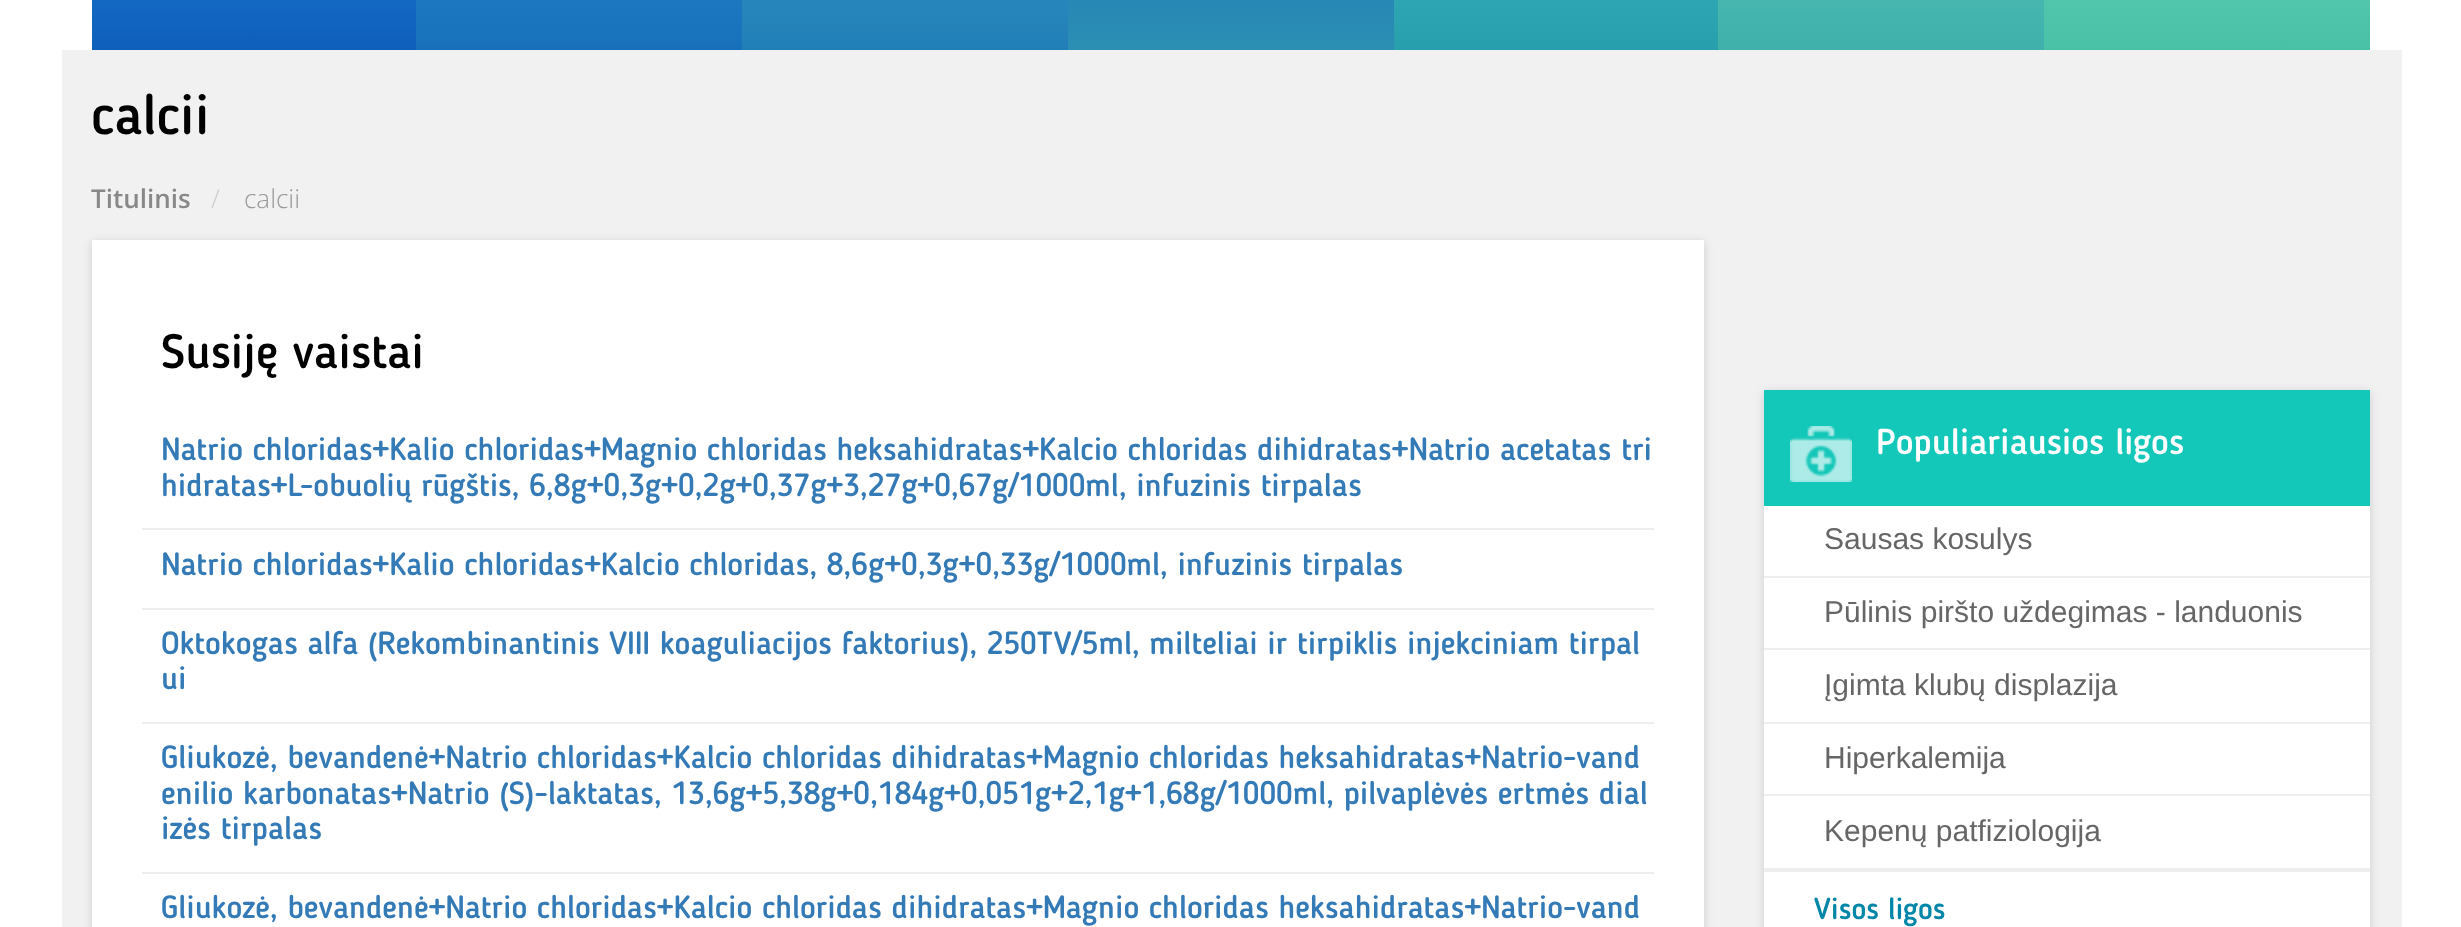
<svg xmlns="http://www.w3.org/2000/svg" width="2461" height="927">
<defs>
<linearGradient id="g1" gradientUnits="userSpaceOnUse" x1="254" y1="-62" x2="254" y2="50"><stop offset="0" stop-color="#1976ca"/><stop offset="1" stop-color="#0e5ebc"/></linearGradient>
<linearGradient id="g2" gradientUnits="userSpaceOnUse" x1="579" y1="-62" x2="579" y2="50"><stop offset="0" stop-color="#2481c6"/><stop offset="1" stop-color="#1870bb"/></linearGradient>
<linearGradient id="g3" gradientUnits="userSpaceOnUse" x1="905" y1="-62" x2="905" y2="50"><stop offset="0" stop-color="#2f8fc2"/><stop offset="1" stop-color="#217fb7"/></linearGradient>
<linearGradient id="g4" gradientUnits="userSpaceOnUse" x1="1231" y1="-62" x2="1231" y2="50"><stop offset="0" stop-color="#217fb7"/><stop offset="1" stop-color="#2b8fb3"/></linearGradient>
<linearGradient id="g5" gradientUnits="userSpaceOnUse" x1="1556" y1="-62" x2="1556" y2="50"><stop offset="0" stop-color="#36adba"/><stop offset="1" stop-color="#289fad"/></linearGradient>
<linearGradient id="g6" gradientUnits="userSpaceOnUse" x1="1881" y1="-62" x2="1881" y2="50"><stop offset="0" stop-color="#50bdb7"/><stop offset="1" stop-color="#3fb1aa"/></linearGradient>
<linearGradient id="g7" gradientUnits="userSpaceOnUse" x1="2207" y1="-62" x2="2207" y2="50"><stop offset="0" stop-color="#5acbb4"/><stop offset="1" stop-color="#49c1a7"/></linearGradient>
</defs>
<rect width="100%" height="100%" fill="#fff"/>
<rect x="92" width="324" height="50" fill="url(#g1)"/>
<rect x="416" width="326" height="50" fill="url(#g2)"/>
<rect x="742" width="326" height="50" fill="url(#g3)"/>
<rect x="1068" width="326" height="50" fill="url(#g4)"/>
<rect x="1394" width="324" height="50" fill="url(#g5)"/>
<rect x="1718" width="326" height="50" fill="url(#g6)"/>
<rect x="2044" width="326" height="50" fill="url(#g7)"/>
<rect x="62" y="50" width="2340" height="877" fill="#f1f1f1"/>
<text x="91" y="134" style="font-family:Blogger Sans;font-size:56px;font-weight:500;fill:#000">calcii</text>
<text x="91" y="208" style="font-family:Open Sans;font-size:26px;font-weight:600;fill:#888">Titulinis</text>
<text x="211" y="208" style="font-family:Open Sans;font-size:26px;font-weight:300;fill:#ccc">/</text>
<text x="244" y="208" style="font-family:Open Sans;font-size:26px;font-weight:300;fill:#999">calcii</text>
<rect x="92" y="242" width="1612" height="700" fill="#00000026" filter="blur(5px)"/>
<rect x="92" y="240" width="1612" height="687" fill="#fff"/>
<text x="161" y="368" style="font-family:Blogger Sans;font-size:48px;font-weight:500;fill:#000">Susiję vaistai</text>
<rect x="142" y="528" width="1512" height="2" fill="#eee"/>
<text x="161" y="460" style="font-family:Blogger Sans;font-size:32px;font-weight:500;fill:#337ab7">Natrio chloridas+Kalio chloridas+Magnio chloridas heksahidratas+Kalcio chloridas dihidratas+Natrio acetatas tri</text>
<text x="161" y="496" style="font-family:Blogger Sans;font-size:32px;font-weight:500;fill:#337ab7">hidratas+L-obuolių rūgštis, 6,8g+0,3g+0,2g+0,37g+3,27g+0,67g/1000ml, infuzinis tirpalas</text>
<rect x="142" y="608" width="1512" height="2" fill="#eee"/>
<text x="161" y="575" style="font-family:Blogger Sans;font-size:32px;font-weight:500;fill:#337ab7">Natrio chloridas+Kalio chloridas+Kalcio chloridas, 8,6g+0,3g+0,33g/1000ml, infuzinis tirpalas</text>
<rect x="142" y="722" width="1512" height="2" fill="#eee"/>
<text x="161" y="654" style="font-family:Blogger Sans;font-size:32px;font-weight:500;fill:#337ab7">Oktokogas alfa (Rekombinantinis VIII koaguliacijos faktorius), 250TV/5ml, milteliai ir tirpiklis injekciniam tirpal</text>
<text x="161" y="689" style="font-family:Blogger Sans;font-size:32px;font-weight:500;fill:#337ab7">ui</text>
<rect x="142" y="872" width="1512" height="2" fill="#eee"/>
<text x="161" y="768" style="font-family:Blogger Sans;font-size:32px;font-weight:500;fill:#337ab7">Gliukozė, bevandenė+Natrio chloridas+Kalcio chloridas dihidratas+Magnio chloridas heksahidratas+Natrio-vand</text>
<text x="161" y="804" style="font-family:Blogger Sans;font-size:32px;font-weight:500;fill:#337ab7">enilio karbonatas+Natrio (S)-laktatas, 13,6g+5,38g+0,184g+0,051g+2,1g+1,68g/1000ml, pilvaplėvės ertmės dial</text>
<text x="161" y="839" style="font-family:Blogger Sans;font-size:32px;font-weight:500;fill:#337ab7">izės tirpalas</text>
<text x="161" y="918" style="font-family:Blogger Sans;font-size:32px;font-weight:500;fill:#337ab7">Gliukozė, bevandenė+Natrio chloridas+Kalcio chloridas dihidratas+Magnio chloridas heksahidratas+Natrio-vand</text>
<rect x="1764" y="392" width="606" height="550" fill="#00000026" filter="blur(5px)"/>
<rect x="1764" y="506" width="606" height="421" fill="#fff"/>
<rect x="1764" y="390" width="606" height="116" fill="#13c7b9"/>
<image x="1790" y="426" width="62" height="56" href="media/1.png"/>
<text x="1876" y="454" style="font-family:Blogger Sans;font-size:36px;font-weight:500;fill:#fff">Populiariausios ligos</text>
<rect x="1764" y="576" width="606" height="2" fill="#eee"/>
<text x="1824" y="549" style="font-family:Liberation Sans;font-size:30px;fill:#666">Sausas kosulys</text>
<rect x="1764" y="648" width="606" height="2" fill="#eee"/>
<text x="1824" y="622" style="font-family:Liberation Sans;font-size:30px;fill:#666">Pūlinis piršto uždegimas - landuonis</text>
<rect x="1764" y="722" width="606" height="2" fill="#eee"/>
<text x="1824" y="695" style="font-family:Liberation Sans;font-size:30px;fill:#666">Įgimta klubų displazija</text>
<rect x="1764" y="794" width="606" height="2" fill="#eee"/>
<text x="1824" y="768" style="font-family:Liberation Sans;font-size:30px;fill:#666">Hiperkalemija</text>
<rect x="1764" y="868" width="606" height="4" fill="#eee"/>
<text x="1824" y="841" style="font-family:Liberation Sans;font-size:30px;fill:#666">Kepenų patfiziologija</text>
<text x="1814" y="919" style="font-family:Blogger Sans;font-size:30px;font-weight:500;fill:#0086a8">Visos ligos</text>
</svg>
